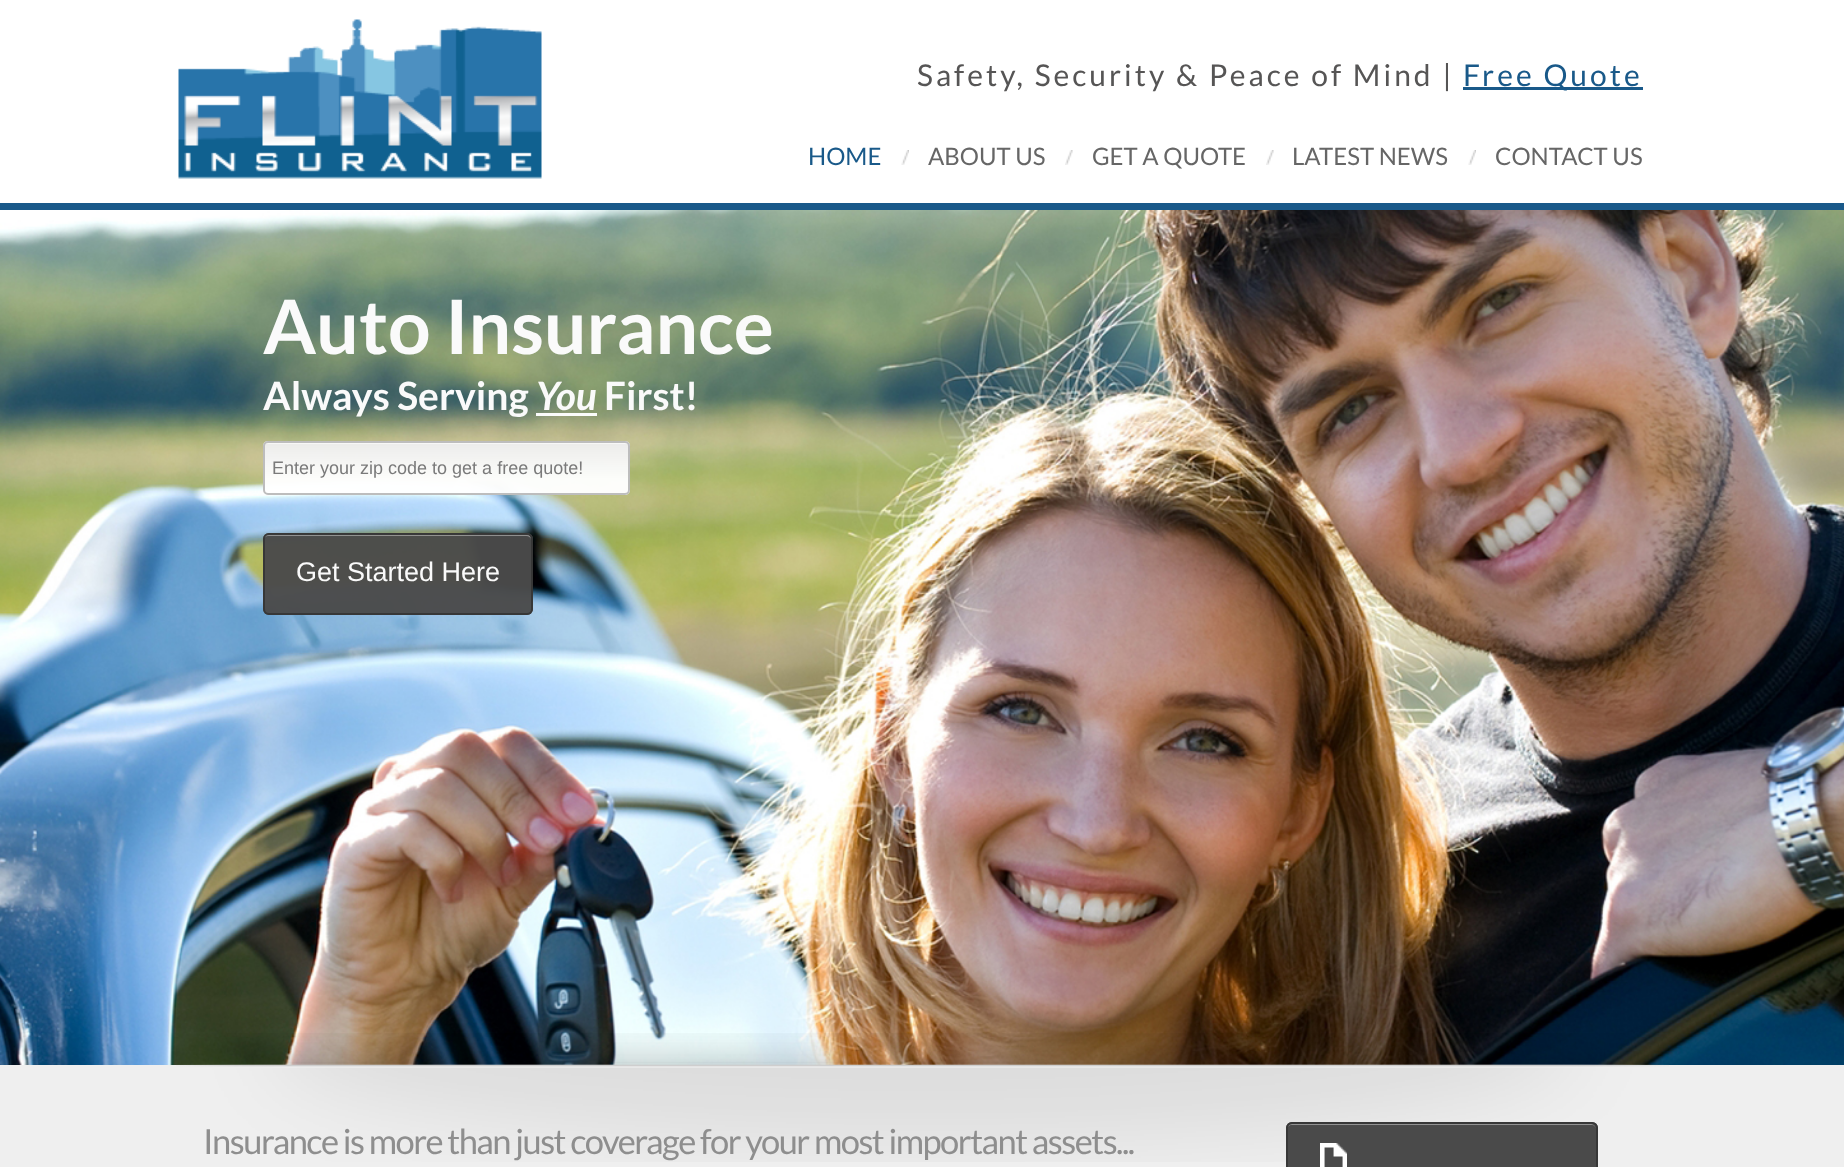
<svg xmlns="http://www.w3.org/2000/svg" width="1844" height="1167">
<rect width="100%" height="100%" fill="#fff"/>
<rect y="203" width="1844" height="7" fill="#195989"/>
<image x="178" y="19" width="364" height="160" href="media/1.png"/>
<text x="917" y="86" style="font-family:Lato;font-size:30px;letter-spacing:3px;fill:#565555">Safety, Security &amp; Peace of Mind |</text>
<rect x="1463" y="87" width="180" height="3" fill="#195989"/>
<text x="1463" y="86" style="font-family:Lato;font-size:30px;letter-spacing:3px;fill:#195989">Free Quote</text>
<image x="901" y="150" width="8" height="15" href="media/2.png"/>
<text x="808" y="165" style="font-family:Lato;font-size:24px;fill:#195989">HOME</text>
<image x="1065" y="150" width="8" height="15" href="media/3.png"/>
<text x="928" y="165" style="font-family:Lato;font-size:24px;fill:#666">ABOUT US</text>
<image x="1266" y="150" width="8" height="15" href="media/3.png"/>
<text x="1092" y="165" style="font-family:Lato;font-size:24px;fill:#666">GET A QUOTE</text>
<image x="1468" y="150" width="8" height="15" href="media/4.png"/>
<text x="1292" y="165" style="font-family:Lato;font-size:24px;fill:#666">LATEST NEWS</text>
<text x="1495" y="165" style="font-family:Lato;font-size:24px;fill:#666">CONTACT US</text>
<image x="0" y="210" width="1844" height="855" href="media/5.png"/>
<text x="263" y="354" style="font-family:Lato;font-size:75px;font-weight:bold;fill:#fafafa">Auto Insurance</text>
<text x="263" y="410" style="font-family:Lato;font-size:39px;font-weight:bold;fill:#fafafa">Always Serving</text>
<text x="536" y="410" style="font-family:Lato;font-size:39px;font-weight:bold;font-style:italic;fill:#fafafa">You</text>
<rect x="536" y="413" width="61" height="3" fill="#fffffff7"/>
<text x="604" y="410" style="font-family:Lato;font-size:39px;font-weight:bold;fill:#fafafa">First!</text>
<rect x="264" y="442" width="365" height="52" rx="4" fill="none" stroke="#bbbbbbf7" stroke-width="2"/>
<text x="272" y="474" style="font-family:Liberation Sans;font-size:18px;fill:#7a7a7a">Enter your zip code to get a free quote!</text>
<rect x="263" y="533" width="270" height="82" rx="6" fill="#4a4a4af7"/>
<path d="M268 536h258c3 0 5 2 5 4c0-3-2-6-5-6h-257c-3 0-5 3-5 6c0-2 2-4 4-4z" fill="#ffffff63"/>
<rect x="264" y="534" width="268" height="80" rx="5" fill="none" stroke="#373737f7" stroke-width="2"/>
<text x="296" y="581" style="font-family:Liberation Sans;font-size:27px;fill:#fafafa">Get Started Here</text>
<rect y="1065" width="1844" height="102" fill="#efefef"/>
<image x="176" y="1033" width="1493" height="129" href="media/6.png"/>
<text x="203" y="1154" style="font-family:Lato;font-size:34.5px;letter-spacing:-1.5px;fill:#8e8e8e">Insurance is more than just coverage for your most important assets...</text>
<rect x="1286" y="1122" width="312" height="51" rx="6" fill="#4a4a4a"/>
<image x="1320" y="1143" width="27" height="24" href="media/7.png"/>
<path d="M1292 1125h300c2 0 4 2 4 5c0-3-2-6-5-6h-299c-3 0-5 3-5 6c0-3 2-5 5-5z" fill="#929292"/>
<rect x="1287" y="1123" width="310" height="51" rx="5" fill="none" stroke="#373737" stroke-width="2"/>
</svg>
